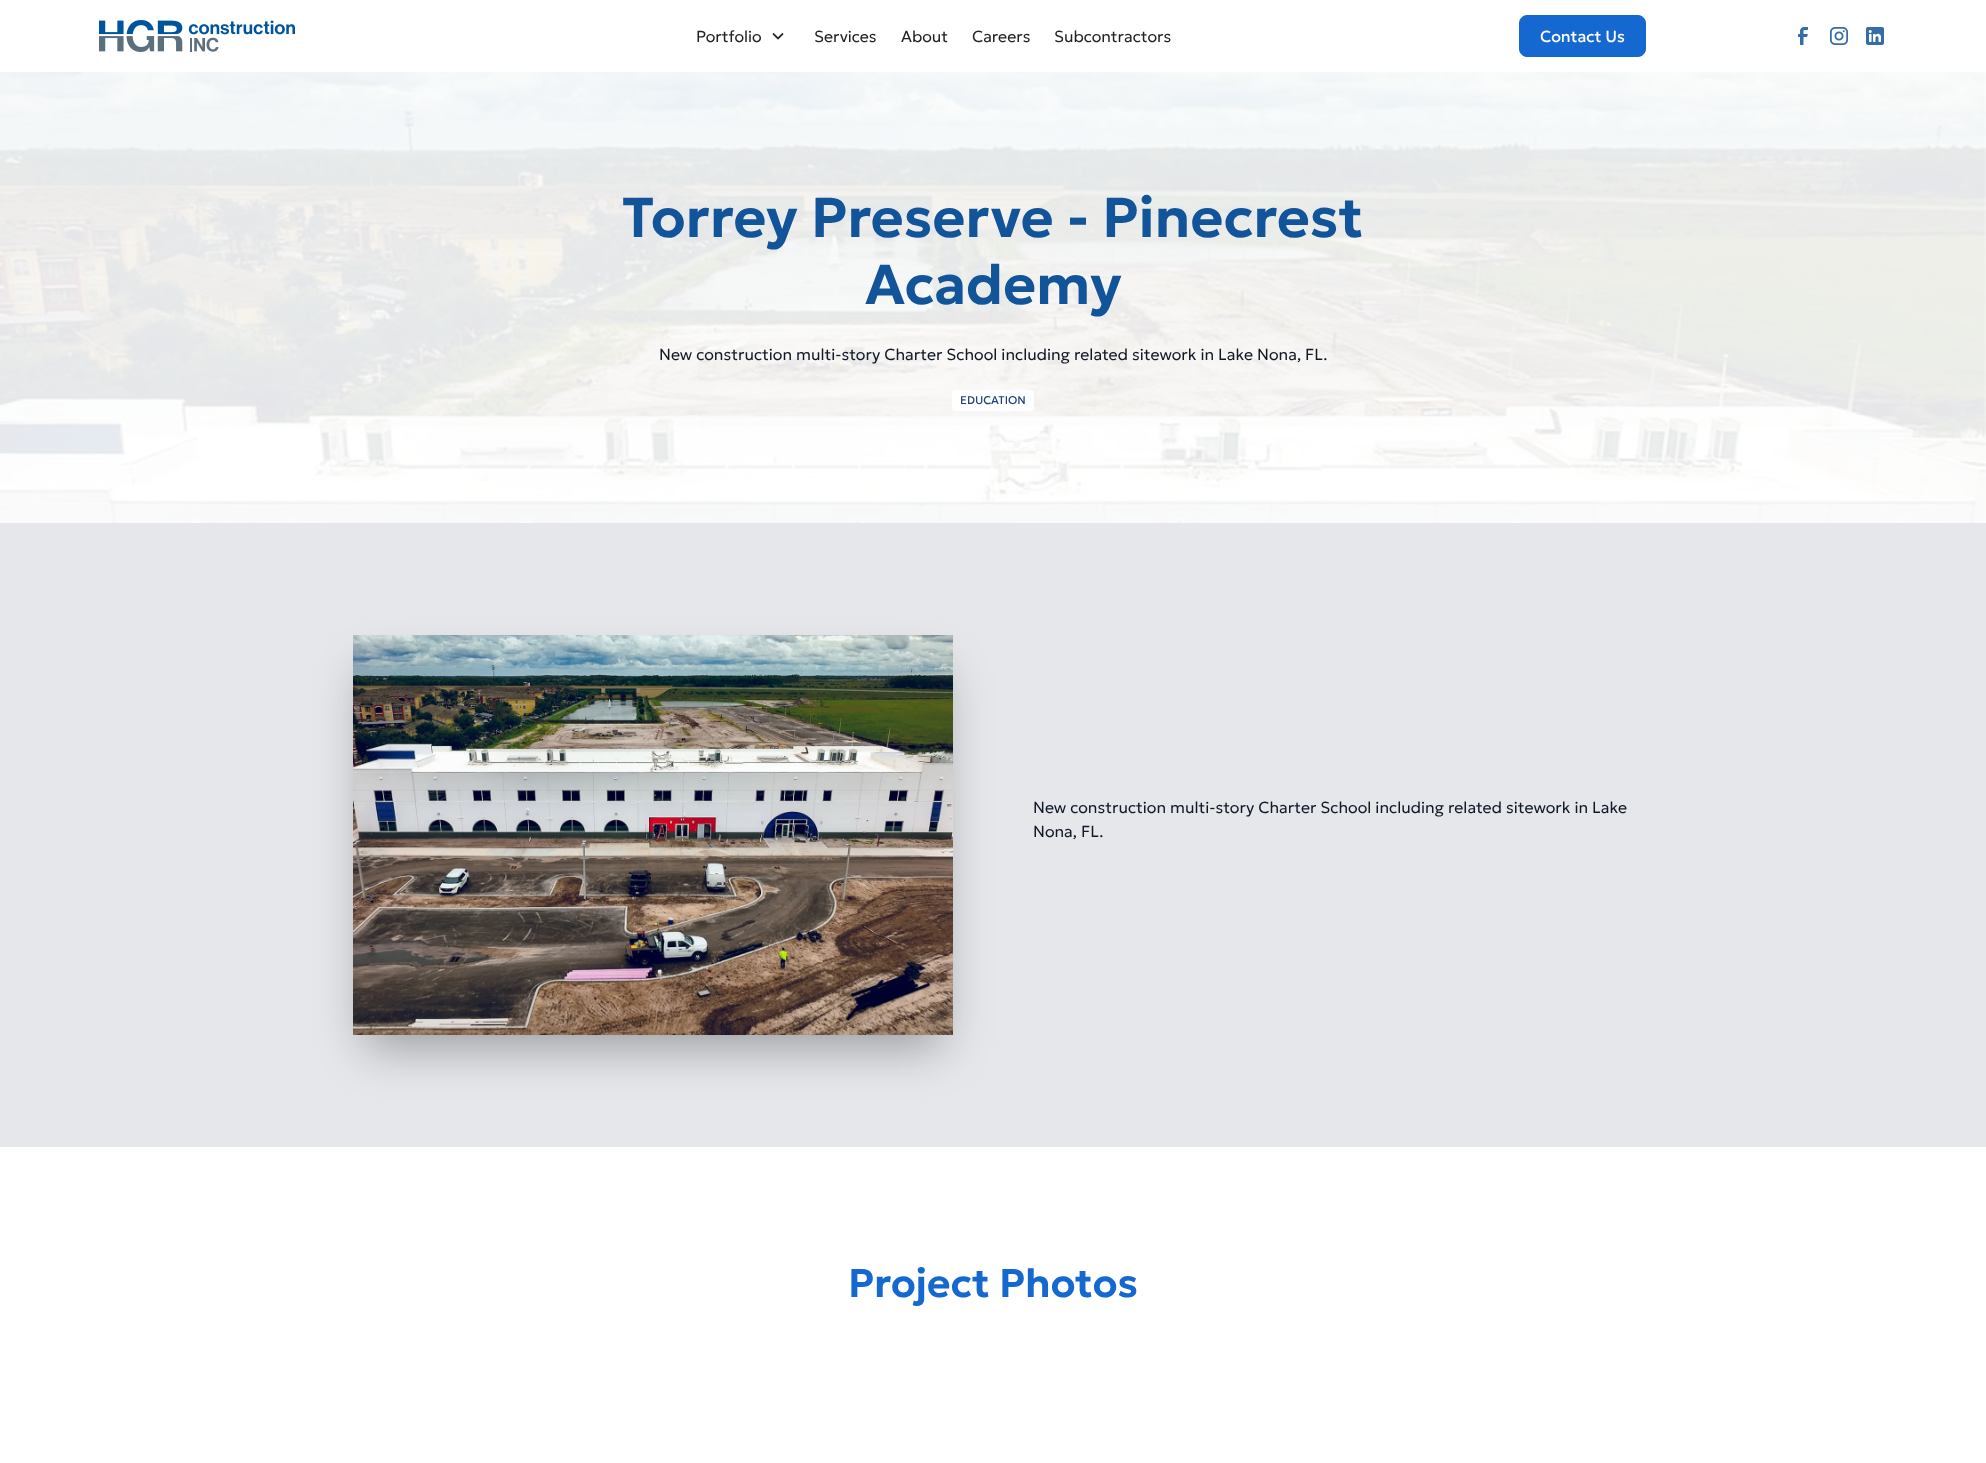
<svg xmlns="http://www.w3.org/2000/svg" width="1986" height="1463">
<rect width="100%" height="100%" fill="#fff"/>
<image x="99" y="20" width="196" height="32" href="media/1.png"/>
<text x="696" y="42" style="font-family:Geologica;font-size:16px;font-weight:300;fill:#222">Portfolio</text>
<image x="772" y="33" width="12" height="7" href="media/2.png"/>
<text x="814" y="42" style="font-family:Geologica;font-size:16px;font-weight:300;fill:#222">Services</text>
<text x="901" y="42" style="font-family:Geologica;font-size:16px;font-weight:300;fill:#222">About</text>
<text x="972" y="42" style="font-family:Geologica;font-size:16px;font-weight:300;fill:#222">Careers</text>
<text x="1054" y="42" style="font-family:Geologica;font-size:16px;font-weight:300;fill:#222">Subcontractors</text>
<rect x="1519.5" y="15.5" width="126" height="41" rx="7.5" fill="#1568cf" stroke="#1568cf"/>
<text x="1540" y="42" style="font-family:Geologica;font-size:16px;fill:#fff">Contact Us</text>
<image x="1798" y="27" width="10" height="18" href="media/3.png"/>
<image x="1830" y="27" width="18" height="18" href="media/4.png"/>
<image x="1866" y="27" width="18" height="18" href="media/5.png"/>
<image x="0" y="72" width="1986" height="451" href="media/6.png"/>
<rect y="72" width="1986" height="451" fill="#ffffffe6"/>
<text x="622" y="237" style="font-family:Geologica;font-size:56px;font-weight:600;fill:#125499">Torrey Preserve - Pinecrest</text>
<text x="865" y="304" style="font-family:Geologica;font-size:56px;font-weight:600;fill:#125499">Academy</text>
<text x="659" y="360" style="font-family:Geologica;font-size:16px;font-weight:300;fill:#111927">New construction multi-story Charter School including related sitework in Lake Nona, FL.</text>
<rect x="952" y="390" width="82" height="21" rx="4" fill="#fff"/>
<text x="960" y="404" style="font-family:Geologica;font-size:11.25px;fill:#194185">EDUCATION</text>
<rect y="523" width="1986" height="624" fill="#e5e7eb"/>
<rect x="365" y="671" width="576" height="376" fill="#00000054" filter="blur(24px)"/>
<image x="353" y="635" width="600" height="400" href="media/7.png"/>
<text x="1033" y="813" style="font-family:Geologica;font-size:16px;font-weight:300;fill:#111927">New construction multi-story Charter School including related sitework in Lake</text>
<text x="1033" y="837" style="font-family:Geologica;font-size:16px;font-weight:300;fill:#111927">Nona, FL.</text>
<text x="848" y="1297" style="font-family:Geologica;font-size:40px;font-weight:600;fill:#1568cf">Project Photos</text>
</svg>
